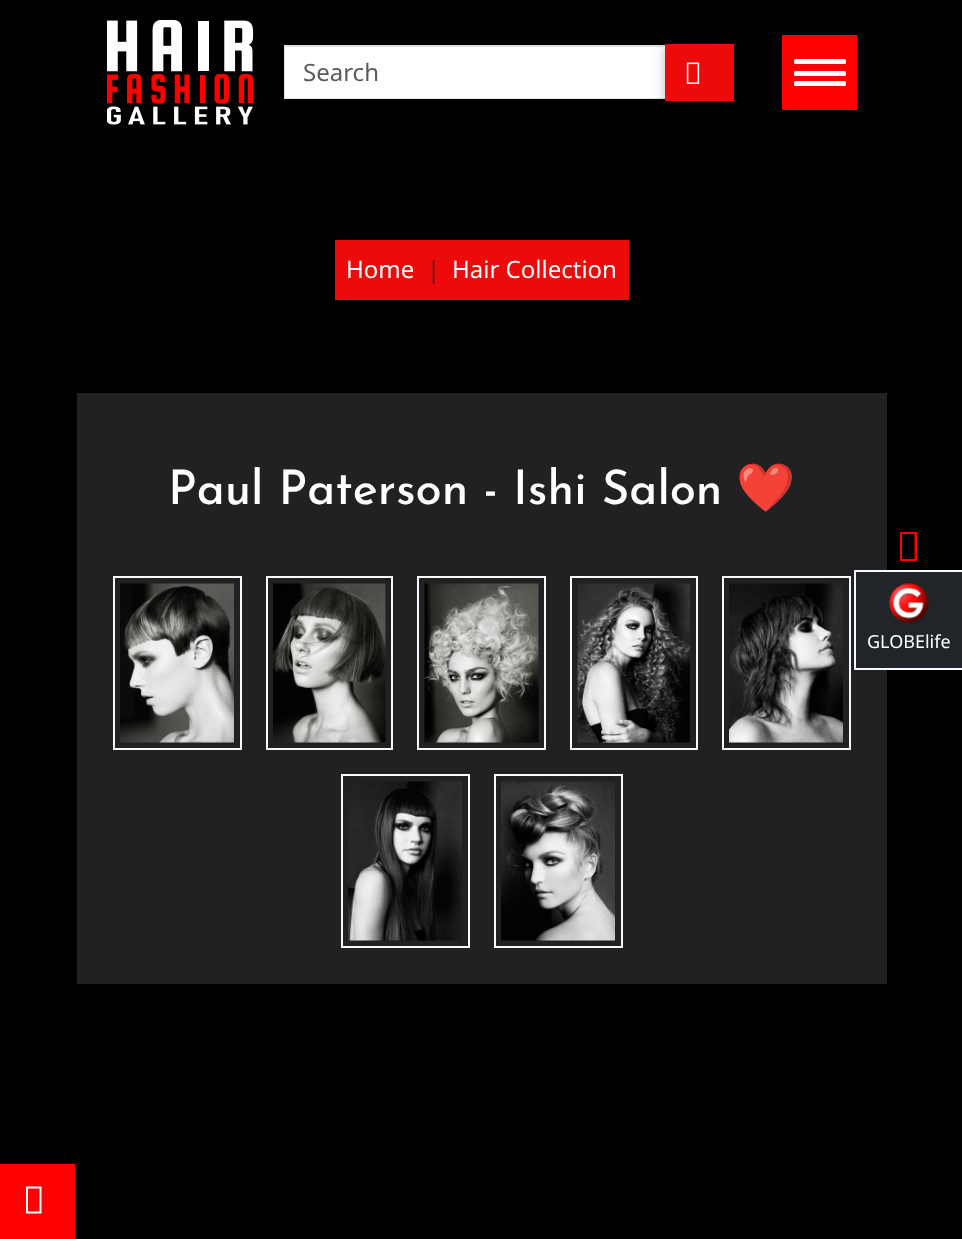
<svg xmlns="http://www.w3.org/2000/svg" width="962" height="1239">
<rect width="100%" height="100%" fill="#000"/>
<image x="107" y="20" width="147" height="105" href="media/1.png"/>
<rect x="287" y="49" width="376" height="47" fill="#fff"/>
<rect x="285" y="46" width="380" height="52" fill="none" stroke="#dee2e6" stroke-width="2"/>
<rect x="286" y="48" width="378" height="49" fill="none" stroke="#fff" stroke-width="2"/>
<text x="303" y="81" style="font-family:Noto Sans;font-size:24px;fill:#595c5f">Search</text>
<rect x="665" y="47" width="69" height="57" fill="#0000001a" filter="blur(7.5px)"/>
<rect x="665" y="47" width="69" height="57" fill="#00000033" filter="blur(4px)"/>
<rect x="665" y="44" width="69" height="57" fill="#ed0a0a"/>
<image x="686" y="62" width="14" height="22" href="media/2.png"/>
<rect x="782" y="35" width="75" height="75" fill="#f00"/>
<rect x="794" y="59" width="52" height="5" rx="1.5" fill="#fff"/>
<rect x="794" y="71" width="52" height="5" rx="1.5" fill="#fff"/>
<rect x="794" y="81" width="52" height="5" rx="1.5" fill="#fff"/>
<rect x="335" y="240" width="294" height="60" fill="#ed0a0a"/>
<text x="346" y="278" style="font-family:Noto Sans;font-size:24px;fill:#fff">Home</text>
<text x="427" y="278" style="font-family:Noto Sans;font-size:24px;fill:#541e21">|</text>
<text x="452" y="278" style="font-family:Noto Sans;font-size:24px;fill:#fff">Hair Collection</text>
<rect x="77" y="393" width="810" height="591" fill="#212123"/>
<text x="168" y="504" style="font-family:Josefin Sans;font-size:47.5px;font-weight:500;fill:#fff">Paul Paterson - Ishi Salon</text>
<text x="736" y="504" style="font-family:Noto Color Emoji;font-size:47.5px;fill:#fff">❤️</text>
<rect x="114" y="577" width="127" height="172" fill="none" stroke="#f8f9fa" stroke-width="2"/>
<image x="120" y="583" width="114" height="160" href="media/3.png"/>
<rect x="267" y="577" width="125" height="172" fill="none" stroke="#f8f9fa" stroke-width="2"/>
<image x="273" y="583" width="113" height="160" href="media/4.png"/>
<rect x="418" y="577" width="127" height="172" fill="none" stroke="#f8f9fa" stroke-width="2"/>
<image x="424" y="583" width="115" height="160" href="media/5.png"/>
<rect x="571" y="577" width="126" height="172" fill="none" stroke="#f8f9fa" stroke-width="2"/>
<image x="577" y="583" width="113" height="160" href="media/6.png"/>
<rect x="723" y="577" width="127" height="172" fill="none" stroke="#f8f9fa" stroke-width="2"/>
<image x="729" y="583" width="114" height="160" href="media/7.png"/>
<rect x="342" y="775" width="127" height="172" fill="none" stroke="#f8f9fa" stroke-width="2"/>
<image x="348" y="781" width="114" height="160" href="media/8.png"/>
<rect x="495" y="775" width="127" height="172" fill="none" stroke="#f8f9fa" stroke-width="2"/>
<image x="501" y="781" width="114" height="160" href="media/9.png"/>
<path d="M900 561v-29h17v29zm2-2h12.5v-25h-12.5z" fill="#f00"/>
<rect x="856" y="572" width="106" height="96" fill="#212529"/>
<rect x="854" y="570" width="108" height="2" fill="#f8f9fa"/>
<rect x="854" y="668" width="108" height="2" fill="#f8f9fa"/>
<rect x="854" y="570" width="2" height="99" fill="#f8f9fa"/>
<image x="889" y="583" width="40" height="40" href="media/10.png"/>
<text x="867" y="648" style="font-family:Noto Sans;font-size:18px;fill:#fff">GLOBElife</text>
<rect y="1164" width="75" height="75" fill="#f00"/>
<path d="M26 1213.5v-27h15.5v27zm2-2h11.5v-23h-11.5z" fill="#fff"/>
</svg>
